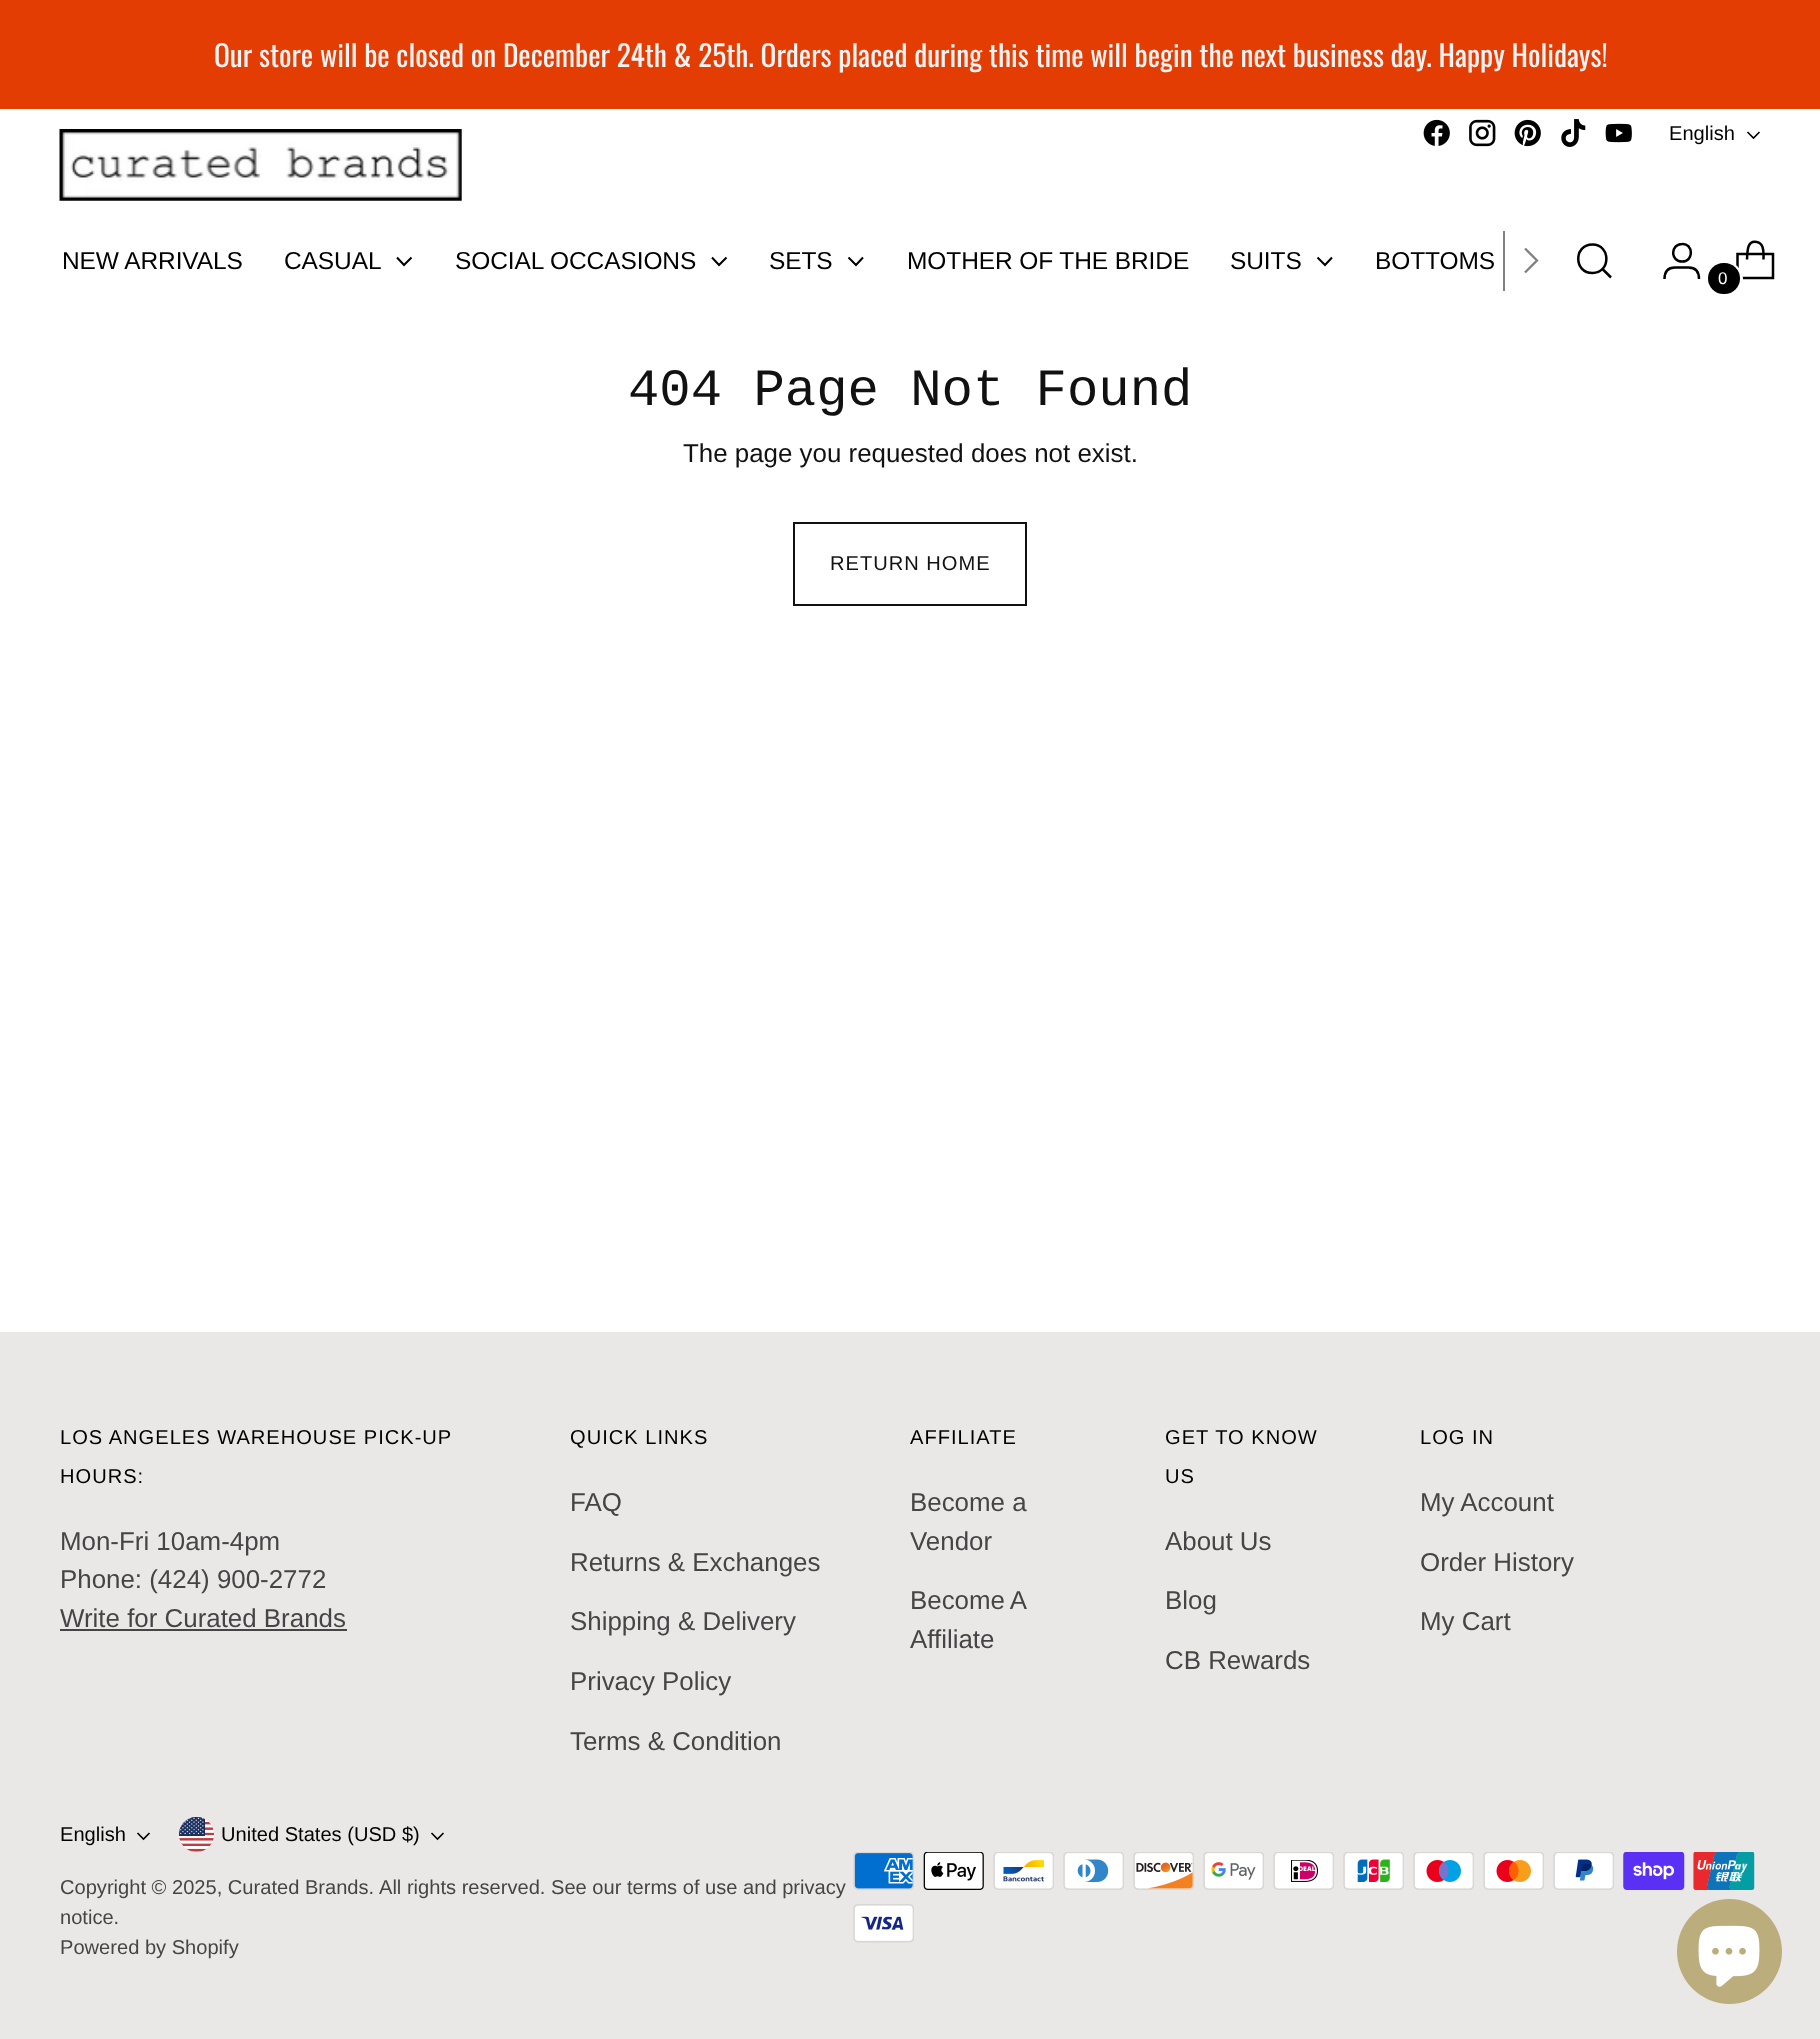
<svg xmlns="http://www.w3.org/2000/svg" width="1820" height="2039">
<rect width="100%" height="100%" fill="#fff"/>
<rect width="1820" height="109" fill="#e43d04"/>
<text x="214" y="67" style="font-family:Oswald;font-size:29.4px;fill:#f3f3f3">Our store will be closed on December 24th &amp; 25th. Orders placed during this time will begin the next business day. Happy Holidays!</text>
<image x="59" y="129" width="403" height="72" href="media/1.png"/>
<image x="1423" y="119" width="27" height="27" href="media/2.png"/>
<image x="1469" y="119" width="27" height="28" href="media/3.png"/>
<image x="1514" y="119" width="27" height="28" href="media/4.png"/>
<image x="1561" y="119" width="25" height="28" href="media/5.png"/>
<image x="1605" y="123" width="27" height="20" href="media/6.png"/>
<text x="1669" y="140" style="font-family:Liberation Sans;font-size:20.1px;fill:#000">English</text>
<path d="M1747.5 132l6 6l6-6" fill="none" stroke="#000" stroke-width="1.6"/>
<text x="62" y="269" style="font-family:Liberation Sans;font-size:24.5px;letter-spacing:-0.1px;fill:#000">NEW ARRIVALS</text>
<text x="284" y="269" style="font-family:Liberation Sans;font-size:24.5px;letter-spacing:-0.1px;fill:#000">CASUAL</text>
<path d="M397 257.5l7 7.5l7.5-7.5" fill="none" stroke="#000" stroke-width="2"/>
<text x="455" y="269" style="font-family:Liberation Sans;font-size:24.5px;letter-spacing:-0.1px;fill:#000">SOCIAL OCCASIONS</text>
<path d="M712 257.5l7 7.5l7.5-7.5" fill="none" stroke="#000" stroke-width="2"/>
<text x="769" y="269" style="font-family:Liberation Sans;font-size:24.5px;letter-spacing:-0.1px;fill:#000">SETS</text>
<path d="M848.5 257.5l7.5 7.5l7-7.5" fill="none" stroke="#000" stroke-width="2"/>
<text x="907" y="269" style="font-family:Liberation Sans;font-size:24.5px;letter-spacing:-0.1px;fill:#000">MOTHER OF THE BRIDE</text>
<text x="1230" y="269" style="font-family:Liberation Sans;font-size:24.5px;letter-spacing:-0.1px;fill:#000">SUITS</text>
<path d="M1317.5 257.5l7.5 7.5l7-7.5" fill="none" stroke="#000" stroke-width="2"/>
<text x="1375" y="269" style="font-family:Liberation Sans;font-size:24.5px;letter-spacing:-0.1px;fill:#000">BOTTOMS</text>
<rect x="1503" y="231" width="2" height="60" fill="#808080"/>
<path d="M1525 272.5l12-12l-12-12" fill="none" stroke="#808080" stroke-width="2.3"/>
<path d="M1592.5 273c18.5 0 18.5-28.5 0-28.5c-19 0-19 28.5 0 28.5z" fill="none" stroke="#000" stroke-width="2.5" stroke-linecap="round"/>
<path d="M1602.5 269l8.5 8.5" fill="none" stroke="#000" stroke-width="2.5"/>
<path d="M1682 261.5c12 .5 11.5-18.5 0-17.5c-12 .5-11.5 17.5 0 17.5zm-17.5 17.5c0-6.5 3-11.5 10.5-11.5h13.5c7.5 0 10.5 5 10.5 11.5" fill="none" stroke="#000" stroke-width="2.5"/>
<path d="M1763.5 259.5c0-4 .5-8.5-1-12.5c-1-2.5-3-4.5-5.5-5c-10.5-2.5-9.5 11-10 17.5" fill="none" stroke="#000" stroke-width="2.5" stroke-linejoin="bevel"/>
<path d="M1773 278v-24h-35.5v24z" fill="none" stroke="#000" stroke-width="2.5"/>
<circle cx="1724.5" cy="279.5" r="17" fill="none" stroke="#fff" stroke-width="3"/>
<rect x="1708" y="263" width="32" height="31" rx="15.5" fill="#000"/>
<text x="1718" y="284" style="font-family:Liberation Sans;font-size:17px;fill:#fff">0</text>
<text x="628" y="405" style="font-family:Liberation Mono;font-size:52.25px;fill:#111">404 Page Not Found</text>
<text x="683" y="462" style="font-family:Liberation Sans;font-size:25.9px;fill:#111">The page you requested does not exist.</text>
<rect x="794" y="523" width="232" height="82" fill="none" stroke="#111" stroke-width="2"/>
<text x="830" y="570" style="font-family:Liberation Sans;font-size:20.1px;letter-spacing:1px;fill:#111">RETURN HOME</text>
<rect y="1332" width="1820" height="707" fill="#eae7e7"/>
<text x="60" y="1444" style="font-family:Liberation Sans;font-size:20.1px;letter-spacing:1px;fill:#000">LOS ANGELES WAREHOUSE PICK-UP</text>
<text x="60" y="1483" style="font-family:Liberation Sans;font-size:20.1px;letter-spacing:1px;fill:#000">HOURS:</text>
<text x="60" y="1550" style="font-family:Liberation Sans;font-size:25.9px;fill:#464545">Mon-Fri 10am-4pm</text>
<text x="60" y="1588" style="font-family:Liberation Sans;font-size:25.9px;fill:#464545">Phone: (424) 900-2772</text>
<text x="60" y="1627" style="font-family:Liberation Sans;font-size:25.9px;fill:#464545">Write for Curated Brands</text>
<rect x="60" y="1629" width="287" height="2" fill="#464545"/>
<text x="570" y="1444" style="font-family:Liberation Sans;font-size:20.1px;letter-spacing:1px;fill:#000">QUICK LINKS</text>
<text x="570" y="1511" style="font-family:Liberation Sans;font-size:25.9px;fill:#464545">FAQ</text>
<text x="570" y="1571" style="font-family:Liberation Sans;font-size:25.9px;fill:#464545">Returns &amp; Exchanges</text>
<text x="570" y="1630" style="font-family:Liberation Sans;font-size:25.9px;fill:#464545">Shipping &amp; Delivery</text>
<text x="570" y="1690" style="font-family:Liberation Sans;font-size:25.9px;fill:#464545">Privacy Policy</text>
<text x="570" y="1750" style="font-family:Liberation Sans;font-size:25.9px;fill:#464545">Terms &amp; Condition</text>
<text x="910" y="1444" style="font-family:Liberation Sans;font-size:20.1px;letter-spacing:1px;fill:#000">AFFILIATE</text>
<text x="910" y="1511" style="font-family:Liberation Sans;font-size:25.9px;fill:#464545">Become a</text>
<text x="910" y="1550" style="font-family:Liberation Sans;font-size:25.9px;fill:#464545">Vendor</text>
<text x="910" y="1609" word-spacing="-1" style="font-family:Liberation Sans;font-size:25.9px;fill:#464545">Become A</text>
<text x="910" y="1648" style="font-family:Liberation Sans;font-size:25.9px;fill:#464545">Affiliate</text>
<text x="1165" y="1444" style="font-family:Liberation Sans;font-size:20.1px;letter-spacing:1px;fill:#000">GET TO KNOW</text>
<text x="1165" y="1483" style="font-family:Liberation Sans;font-size:20.1px;letter-spacing:1px;fill:#000">US</text>
<text x="1165" y="1550" style="font-family:Liberation Sans;font-size:25.9px;fill:#464545">About Us</text>
<text x="1165" y="1609" style="font-family:Liberation Sans;font-size:25.9px;fill:#464545">Blog</text>
<text x="1165" y="1669" style="font-family:Liberation Sans;font-size:25.9px;fill:#464545">CB Rewards</text>
<text x="1420" y="1444" style="font-family:Liberation Sans;font-size:20.1px;letter-spacing:1px;fill:#000">LOG IN</text>
<text x="1420" y="1511" style="font-family:Liberation Sans;font-size:25.9px;fill:#464545">My Account</text>
<text x="1420" y="1571" style="font-family:Liberation Sans;font-size:25.9px;fill:#464545">Order History</text>
<text x="1420" y="1630" style="font-family:Liberation Sans;font-size:25.9px;fill:#464545">My Cart</text>
<text x="60" y="1841" style="font-family:Liberation Sans;font-size:20.1px;fill:#000">English</text>
<path d="M137.5 1833l6 6l6-6" fill="none" stroke="#000" stroke-width="1.6"/>
<image x="179" y="1817" width="35" height="35" href="media/7.png"/>
<text x="221" y="1841" style="font-family:Liberation Sans;font-size:20.1px;fill:#000">United States (USD $)</text>
<path d="M431.5 1833l6 6l6-6" fill="none" stroke="#000" stroke-width="1.6"/>
<text x="60" y="1894" style="font-family:Liberation Sans;font-size:20.1px;fill:#464545">Copyright © 2025, Curated Brands.</text>
<text x="379" y="1894" style="font-family:Liberation Sans;font-size:20.1px;fill:#464545">All rights reserved. See our terms of use and privacy</text>
<text x="60" y="1924" style="font-family:Liberation Sans;font-size:20.1px;fill:#464545">notice.</text>
<text x="60" y="1954" style="font-family:Liberation Sans;font-size:20.1px;fill:#464545">Powered by Shopify</text>
<image x="853" y="1852" width="61" height="38" href="media/8.png"/>
<image x="923" y="1852" width="61" height="38" href="media/9.png"/>
<image x="993" y="1852" width="61" height="38" href="media/10.png"/>
<image x="1063" y="1852" width="61" height="38" href="media/11.png"/>
<image x="1133" y="1852" width="61" height="38" href="media/12.png"/>
<image x="1203" y="1852" width="61" height="38" href="media/13.png"/>
<image x="1273" y="1852" width="61" height="38" href="media/14.png"/>
<image x="1343" y="1852" width="61" height="38" href="media/15.png"/>
<image x="1413" y="1852" width="61" height="38" href="media/16.png"/>
<image x="1483" y="1852" width="61" height="38" href="media/17.png"/>
<image x="1553" y="1852" width="61" height="38" href="media/18.png"/>
<image x="1623" y="1852" width="62" height="38" href="media/19.png"/>
<image x="1693" y="1852" width="62" height="38" href="media/20.png"/>
<image x="853" y="1904" width="61" height="39" href="media/21.png"/>
<circle cx="1729.5" cy="1951.5" r="52.5" fill="#bcad7c"/>
<image x="1698" y="1925" width="62" height="62" href="media/22.png"/>
</svg>
